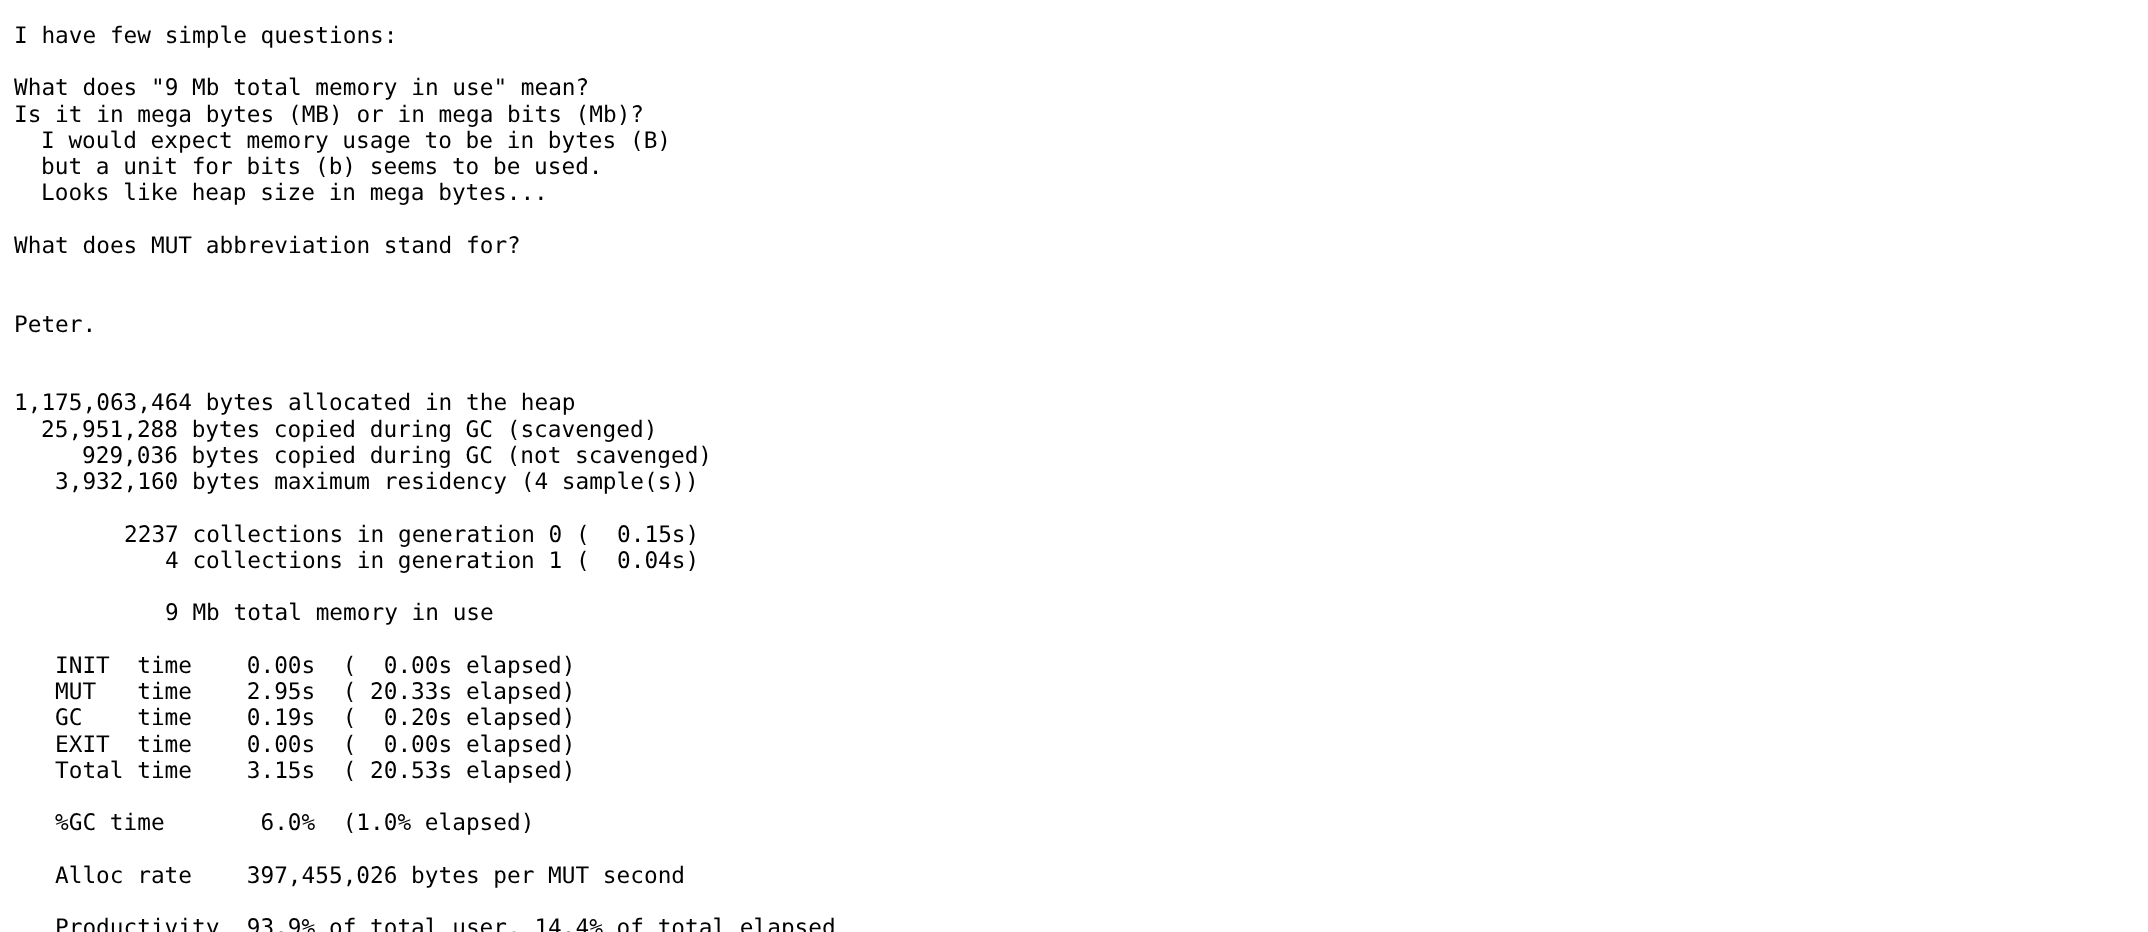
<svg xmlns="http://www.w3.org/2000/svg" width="2148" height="932">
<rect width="100%" height="100%" fill="#fff"/>
<text x="14" y="43" style="font-family:DejaVu Sans Mono;font-size:22.75px;fill:#000">I have few simple questions:</text>
<text x="14" y="95" style="font-family:DejaVu Sans Mono;font-size:22.75px;fill:#000">What does "9 Mb total memory in use" mean?</text>
<text x="14" y="122" style="font-family:DejaVu Sans Mono;font-size:22.75px;fill:#000">Is it in mega bytes (MB) or in mega bits (Mb)?</text>
<text x="41" y="148" style="font-family:DejaVu Sans Mono;font-size:22.75px;fill:#000">I would expect memory usage to be in bytes (B)</text>
<text x="41" y="174" style="font-family:DejaVu Sans Mono;font-size:22.75px;fill:#000">but a unit for bits (b) seems to be used.</text>
<text x="41" y="200" style="font-family:DejaVu Sans Mono;font-size:22.75px;fill:#000">Looks like heap size in mega bytes...</text>
<text x="14" y="253" style="font-family:DejaVu Sans Mono;font-size:22.75px;fill:#000">What does MUT abbreviation stand for?</text>
<text x="14" y="332" style="font-family:DejaVu Sans Mono;font-size:22.75px;fill:#000">Peter.</text>
<text x="14" y="410" style="font-family:DejaVu Sans Mono;font-size:22.75px;fill:#000">1,175,063,464 bytes allocated in the heap</text>
<text x="41" y="437" style="font-family:DejaVu Sans Mono;font-size:22.75px;fill:#000">25,951,288 bytes copied during GC (scavenged)</text>
<text x="82" y="463" style="font-family:DejaVu Sans Mono;font-size:22.75px;fill:#000">929,036 bytes copied during GC (not scavenged)</text>
<text x="55" y="489" style="font-family:DejaVu Sans Mono;font-size:22.75px;fill:#000">3,932,160 bytes maximum residency (4 sample(s))</text>
<text x="124" y="542" style="font-family:DejaVu Sans Mono;font-size:22.75px;fill:#000" xml:space="preserve">2237 collections in generation 0 (  0.15s)</text>
<text x="165" y="568" style="font-family:DejaVu Sans Mono;font-size:22.75px;fill:#000" xml:space="preserve">4 collections in generation 1 (  0.04s)</text>
<text x="165" y="620" style="font-family:DejaVu Sans Mono;font-size:22.75px;fill:#000">9 Mb total memory in use</text>
<text x="55" y="673" style="font-family:DejaVu Sans Mono;font-size:22.75px;fill:#000" xml:space="preserve">INIT  time    0.00s  (  0.00s elapsed)</text>
<text x="55" y="699" style="font-family:DejaVu Sans Mono;font-size:22.75px;fill:#000" xml:space="preserve">MUT   time    2.95s  ( 20.33s elapsed)</text>
<text x="55" y="725" style="font-family:DejaVu Sans Mono;font-size:22.75px;fill:#000" xml:space="preserve">GC    time    0.19s  (  0.20s elapsed)</text>
<text x="55" y="752" style="font-family:DejaVu Sans Mono;font-size:22.75px;fill:#000" xml:space="preserve">EXIT  time    0.00s  (  0.00s elapsed)</text>
<text x="55" y="778" style="font-family:DejaVu Sans Mono;font-size:22.75px;fill:#000" xml:space="preserve">Total time    3.15s  ( 20.53s elapsed)</text>
<text x="55" y="830" style="font-family:DejaVu Sans Mono;font-size:22.75px;fill:#000" xml:space="preserve">%GC time       6.0%  (1.0% elapsed)</text>
<text x="55" y="883" style="font-family:DejaVu Sans Mono;font-size:22.75px;fill:#000" xml:space="preserve">Alloc rate    397,455,026 bytes per MUT second</text>
<text x="55" y="935" style="font-family:DejaVu Sans Mono;font-size:22.75px;fill:#000" xml:space="preserve">Productivity  93.9% of total user, 14.4% of total elapsed</text>
</svg>
